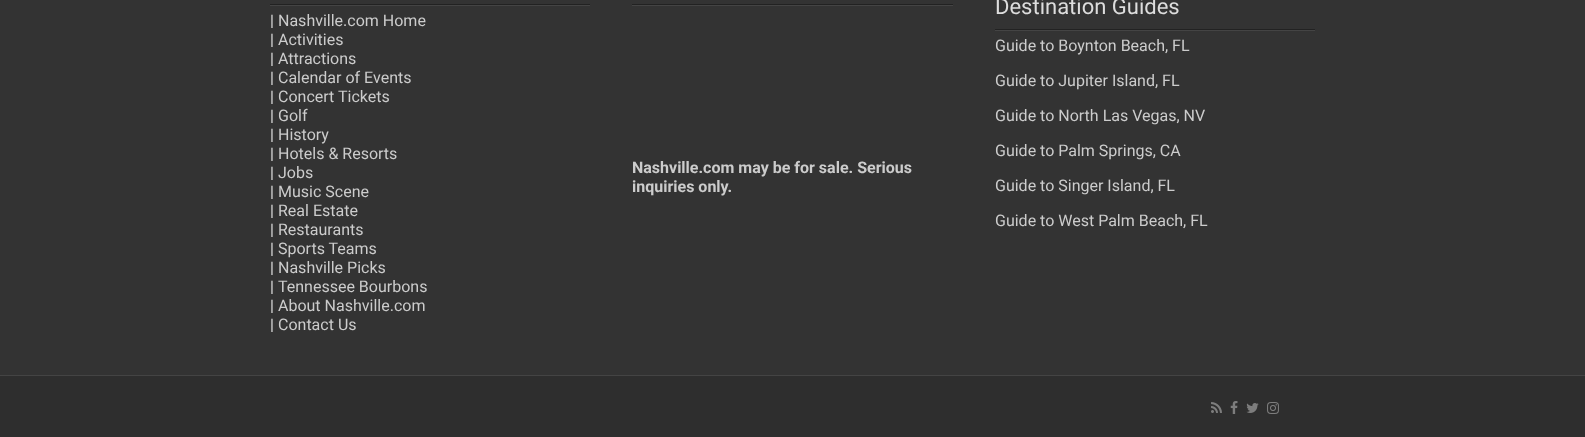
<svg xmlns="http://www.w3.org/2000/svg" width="1585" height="437">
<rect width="100%" height="100%" fill="#333"/>
<rect x="270" y="4" width="320" height="1" fill="#222"/>
<rect x="270" y="5" width="320" height="1" fill="#444"/>
<text x="270" y="26" style="font-family:Roboto;font-size:16px;fill:#ddd">|</text>
<text x="278" y="26" style="font-family:Roboto;font-size:16px;fill:#ccc">Nashville.com Home</text>
<text x="270" y="45" style="font-family:Roboto;font-size:16px;fill:#ddd">|</text>
<text x="278" y="45" style="font-family:Roboto;font-size:16px;fill:#ccc">Activities</text>
<text x="270" y="64" style="font-family:Roboto;font-size:16px;fill:#ddd">|</text>
<text x="278" y="64" style="font-family:Roboto;font-size:16px;fill:#ccc">Attractions</text>
<text x="270" y="83" style="font-family:Roboto;font-size:16px;fill:#ddd">|</text>
<text x="278" y="83" style="font-family:Roboto;font-size:16px;fill:#ccc">Calendar of Events</text>
<text x="270" y="102" style="font-family:Roboto;font-size:16px;fill:#ddd">|</text>
<text x="278" y="102" style="font-family:Roboto;font-size:16px;fill:#ccc">Concert Tickets</text>
<text x="270" y="121" style="font-family:Roboto;font-size:16px;fill:#ddd">|</text>
<text x="278" y="121" style="font-family:Roboto;font-size:16px;fill:#ccc">Golf</text>
<text x="270" y="140" style="font-family:Roboto;font-size:16px;fill:#ddd">|</text>
<text x="278" y="140" style="font-family:Roboto;font-size:16px;fill:#ccc">History</text>
<text x="270" y="159" style="font-family:Roboto;font-size:16px;fill:#ddd">|</text>
<text x="278" y="159" style="font-family:Roboto;font-size:16px;fill:#ccc">Hotels &amp; Resorts</text>
<text x="270" y="178" style="font-family:Roboto;font-size:16px;fill:#ddd">|</text>
<text x="278" y="178" style="font-family:Roboto;font-size:16px;fill:#ccc">Jobs</text>
<text x="270" y="197" style="font-family:Roboto;font-size:16px;fill:#ddd">|</text>
<text x="278" y="197" style="font-family:Roboto;font-size:16px;fill:#ccc">Music Scene</text>
<text x="270" y="216" style="font-family:Roboto;font-size:16px;fill:#ddd">|</text>
<text x="278" y="216" style="font-family:Roboto;font-size:16px;fill:#ccc">Real Estate</text>
<text x="270" y="235" style="font-family:Roboto;font-size:16px;fill:#ddd">|</text>
<text x="278" y="235" style="font-family:Roboto;font-size:16px;fill:#ccc">Restaurants</text>
<text x="270" y="254" style="font-family:Roboto;font-size:16px;fill:#ddd">|</text>
<text x="278" y="254" style="font-family:Roboto;font-size:16px;fill:#ccc">Sports Teams</text>
<text x="270" y="273" style="font-family:Roboto;font-size:16px;fill:#ddd">|</text>
<text x="278" y="273" style="font-family:Roboto;font-size:16px;fill:#ccc">Nashville Picks</text>
<text x="270" y="292" style="font-family:Roboto;font-size:16px;fill:#ddd">|</text>
<text x="278" y="292" style="font-family:Roboto;font-size:16px;fill:#ccc">Tennessee Bourbons</text>
<text x="270" y="311" style="font-family:Roboto;font-size:16px;fill:#ddd">|</text>
<text x="278" y="311" style="font-family:Roboto;font-size:16px;fill:#ccc">About Nashville.com</text>
<text x="270" y="330" style="font-family:Roboto;font-size:16px;fill:#ddd">|</text>
<text x="278" y="330" style="font-family:Roboto;font-size:16px;fill:#ccc">Contact Us</text>
<rect x="632" y="4" width="321" height="1" fill="#222"/>
<rect x="632" y="5" width="321" height="1" fill="#444"/>
<text x="632" y="173" style="font-family:Roboto;font-size:16px;font-weight:bold;fill:#ccc">Nashville.com may be for sale. Serious</text>
<text x="632" y="192" style="font-family:Roboto;font-size:16px;font-weight:bold;fill:#ccc">inquiries only.</text>
<rect x="995" y="29" width="320" height="1" fill="#222"/>
<text x="995" y="14" style="font-family:Roboto;font-size:22px;fill:#ddd">Destination Guides</text>
<rect x="995" y="30" width="320" height="1" fill="#444"/>
<text x="995" y="51" style="font-family:Roboto;font-size:16px;fill:#ccc">Guide to Boynton Beach, FL</text>
<text x="995" y="86" style="font-family:Roboto;font-size:16px;fill:#ccc">Guide to Jupiter Island, FL</text>
<text x="995" y="121" style="font-family:Roboto;font-size:16px;fill:#ccc">Guide to North Las Vegas, NV</text>
<text x="995" y="156" style="font-family:Roboto;font-size:16px;fill:#ccc">Guide to Palm Springs, CA</text>
<text x="995" y="191" style="font-family:Roboto;font-size:16px;fill:#ccc">Guide to Singer Island, FL</text>
<text x="995" y="226" style="font-family:Roboto;font-size:16px;fill:#ccc">Guide to West Palm Beach, FL</text>
<rect y="376" width="1585" height="61" fill="#2e2e2e"/>
<rect y="375" width="1585" height="1" fill="#444"/>
<image x="1211" y="402" width="11" height="11" href="media/1.png"/>
<image x="1230" y="401" width="8" height="13" href="media/2.png"/>
<image x="1246" y="403" width="13" height="10" href="media/3.png"/>
<image x="1267" y="402" width="12" height="12" href="media/4.png"/>
</svg>
